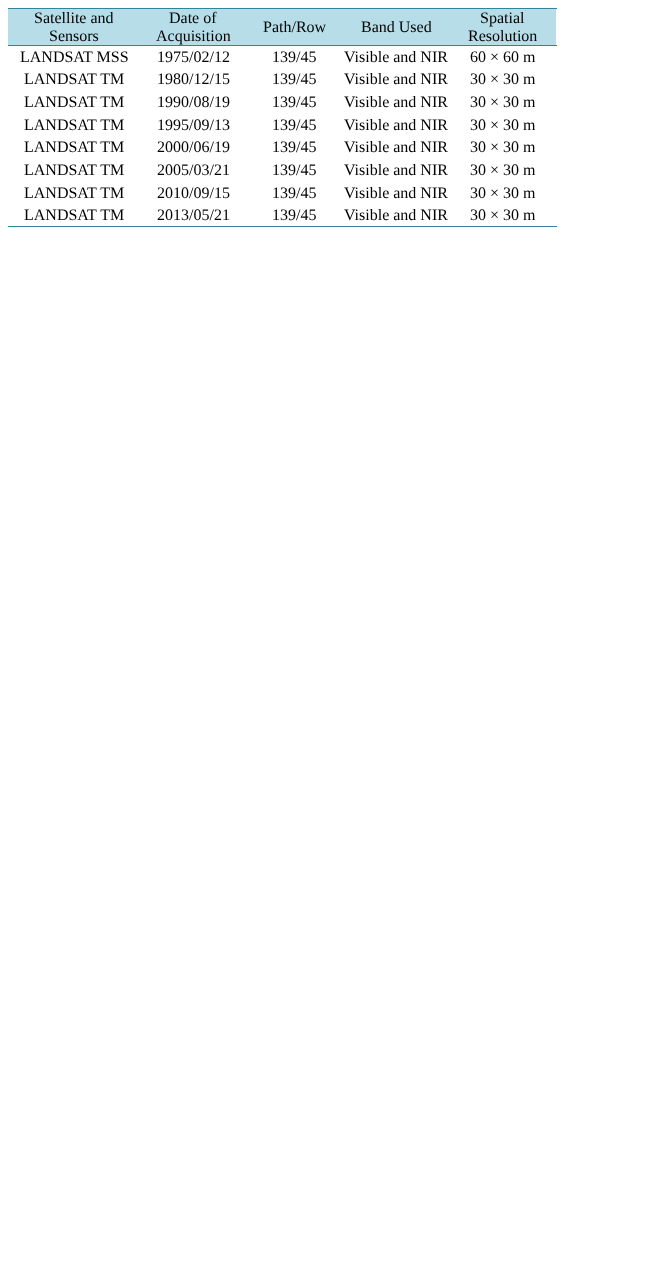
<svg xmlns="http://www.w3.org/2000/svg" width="666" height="1271">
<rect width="100%" height="100%" fill="#fff"/>
<rect x="8" y="9" width="548" height="36" fill="#b6dde8"/>
<text x="34" y="23" style="font-family:Liberation Serif;font-size:16px;fill:#000">Satellite and</text>
<text x="49" y="41" style="font-family:Liberation Serif;font-size:16px;fill:#000">Sensors</text>
<text x="169" y="23" style="font-family:Liberation Serif;font-size:16px;fill:#000">Date of</text>
<text x="156" y="41" style="font-family:Liberation Serif;font-size:16px;fill:#000">Acquisition</text>
<text x="263" y="32" style="font-family:Liberation Serif;font-size:16px;fill:#000">Path/Row</text>
<text x="361" y="32" style="font-family:Liberation Serif;font-size:16px;fill:#000">Band Used</text>
<rect x="8" y="8" width="549" height="1" fill="#31849b"/>
<rect x="8" y="45" width="549" height="1" fill="#31849b"/>
<text x="480" y="23" style="font-family:Liberation Serif;font-size:16px;fill:#000">Spatial</text>
<text x="468" y="41" style="font-family:Liberation Serif;font-size:16px;fill:#000">Resolution</text>
<text x="20" y="62" style="font-family:Liberation Serif;font-size:16px;fill:#000">LANDSAT MSS</text>
<text x="157" y="62" style="font-family:Liberation Serif;font-size:16px;fill:#000">1975/02/12</text>
<text x="272" y="62" style="font-family:Liberation Serif;font-size:16px;fill:#000">139/45</text>
<text x="344" y="62" style="font-family:Liberation Serif;font-size:16px;fill:#000">Visible and NIR</text>
<text x="470" y="62" style="font-family:Liberation Serif;font-size:16px;fill:#000">60 × 60 m</text>
<text x="24" y="84" style="font-family:Liberation Serif;font-size:16px;fill:#000">LANDSAT TM</text>
<text x="157" y="84" style="font-family:Liberation Serif;font-size:16px;fill:#000">1980/12/15</text>
<text x="272" y="84" style="font-family:Liberation Serif;font-size:16px;fill:#000">139/45</text>
<text x="344" y="84" style="font-family:Liberation Serif;font-size:16px;fill:#000">Visible and NIR</text>
<text x="470" y="84" style="font-family:Liberation Serif;font-size:16px;fill:#000">30 × 30 m</text>
<text x="24" y="107" style="font-family:Liberation Serif;font-size:16px;fill:#000">LANDSAT TM</text>
<text x="157" y="107" style="font-family:Liberation Serif;font-size:16px;fill:#000">1990/08/19</text>
<text x="272" y="107" style="font-family:Liberation Serif;font-size:16px;fill:#000">139/45</text>
<text x="344" y="107" style="font-family:Liberation Serif;font-size:16px;fill:#000">Visible and NIR</text>
<text x="470" y="107" style="font-family:Liberation Serif;font-size:16px;fill:#000">30 × 30 m</text>
<text x="24" y="130" style="font-family:Liberation Serif;font-size:16px;fill:#000">LANDSAT TM</text>
<text x="157" y="130" style="font-family:Liberation Serif;font-size:16px;fill:#000">1995/09/13</text>
<text x="272" y="130" style="font-family:Liberation Serif;font-size:16px;fill:#000">139/45</text>
<text x="344" y="130" style="font-family:Liberation Serif;font-size:16px;fill:#000">Visible and NIR</text>
<text x="470" y="130" style="font-family:Liberation Serif;font-size:16px;fill:#000">30 × 30 m</text>
<text x="24" y="152" style="font-family:Liberation Serif;font-size:16px;fill:#000">LANDSAT TM</text>
<text x="157" y="152" style="font-family:Liberation Serif;font-size:16px;fill:#000">2000/06/19</text>
<text x="272" y="152" style="font-family:Liberation Serif;font-size:16px;fill:#000">139/45</text>
<text x="344" y="152" style="font-family:Liberation Serif;font-size:16px;fill:#000">Visible and NIR</text>
<text x="470" y="152" style="font-family:Liberation Serif;font-size:16px;fill:#000">30 × 30 m</text>
<text x="24" y="175" style="font-family:Liberation Serif;font-size:16px;fill:#000">LANDSAT TM</text>
<text x="157" y="175" style="font-family:Liberation Serif;font-size:16px;fill:#000">2005/03/21</text>
<text x="272" y="175" style="font-family:Liberation Serif;font-size:16px;fill:#000">139/45</text>
<text x="344" y="175" style="font-family:Liberation Serif;font-size:16px;fill:#000">Visible and NIR</text>
<text x="470" y="175" style="font-family:Liberation Serif;font-size:16px;fill:#000">30 × 30 m</text>
<text x="24" y="198" style="font-family:Liberation Serif;font-size:16px;fill:#000">LANDSAT TM</text>
<text x="157" y="198" style="font-family:Liberation Serif;font-size:16px;fill:#000">2010/09/15</text>
<text x="272" y="198" style="font-family:Liberation Serif;font-size:16px;fill:#000">139/45</text>
<text x="344" y="198" style="font-family:Liberation Serif;font-size:16px;fill:#000">Visible and NIR</text>
<text x="470" y="198" style="font-family:Liberation Serif;font-size:16px;fill:#000">30 × 30 m</text>
<text x="24" y="220" style="font-family:Liberation Serif;font-size:16px;fill:#000">LANDSAT TM</text>
<text x="157" y="220" style="font-family:Liberation Serif;font-size:16px;fill:#000">2013/05/21</text>
<text x="272" y="220" style="font-family:Liberation Serif;font-size:16px;fill:#000">139/45</text>
<text x="344" y="220" style="font-family:Liberation Serif;font-size:16px;fill:#000">Visible and NIR</text>
<rect x="8" y="226" width="549" height="1" fill="#31849b"/>
<text x="470" y="220" style="font-family:Liberation Serif;font-size:16px;fill:#000">30 × 30 m</text>
</svg>
